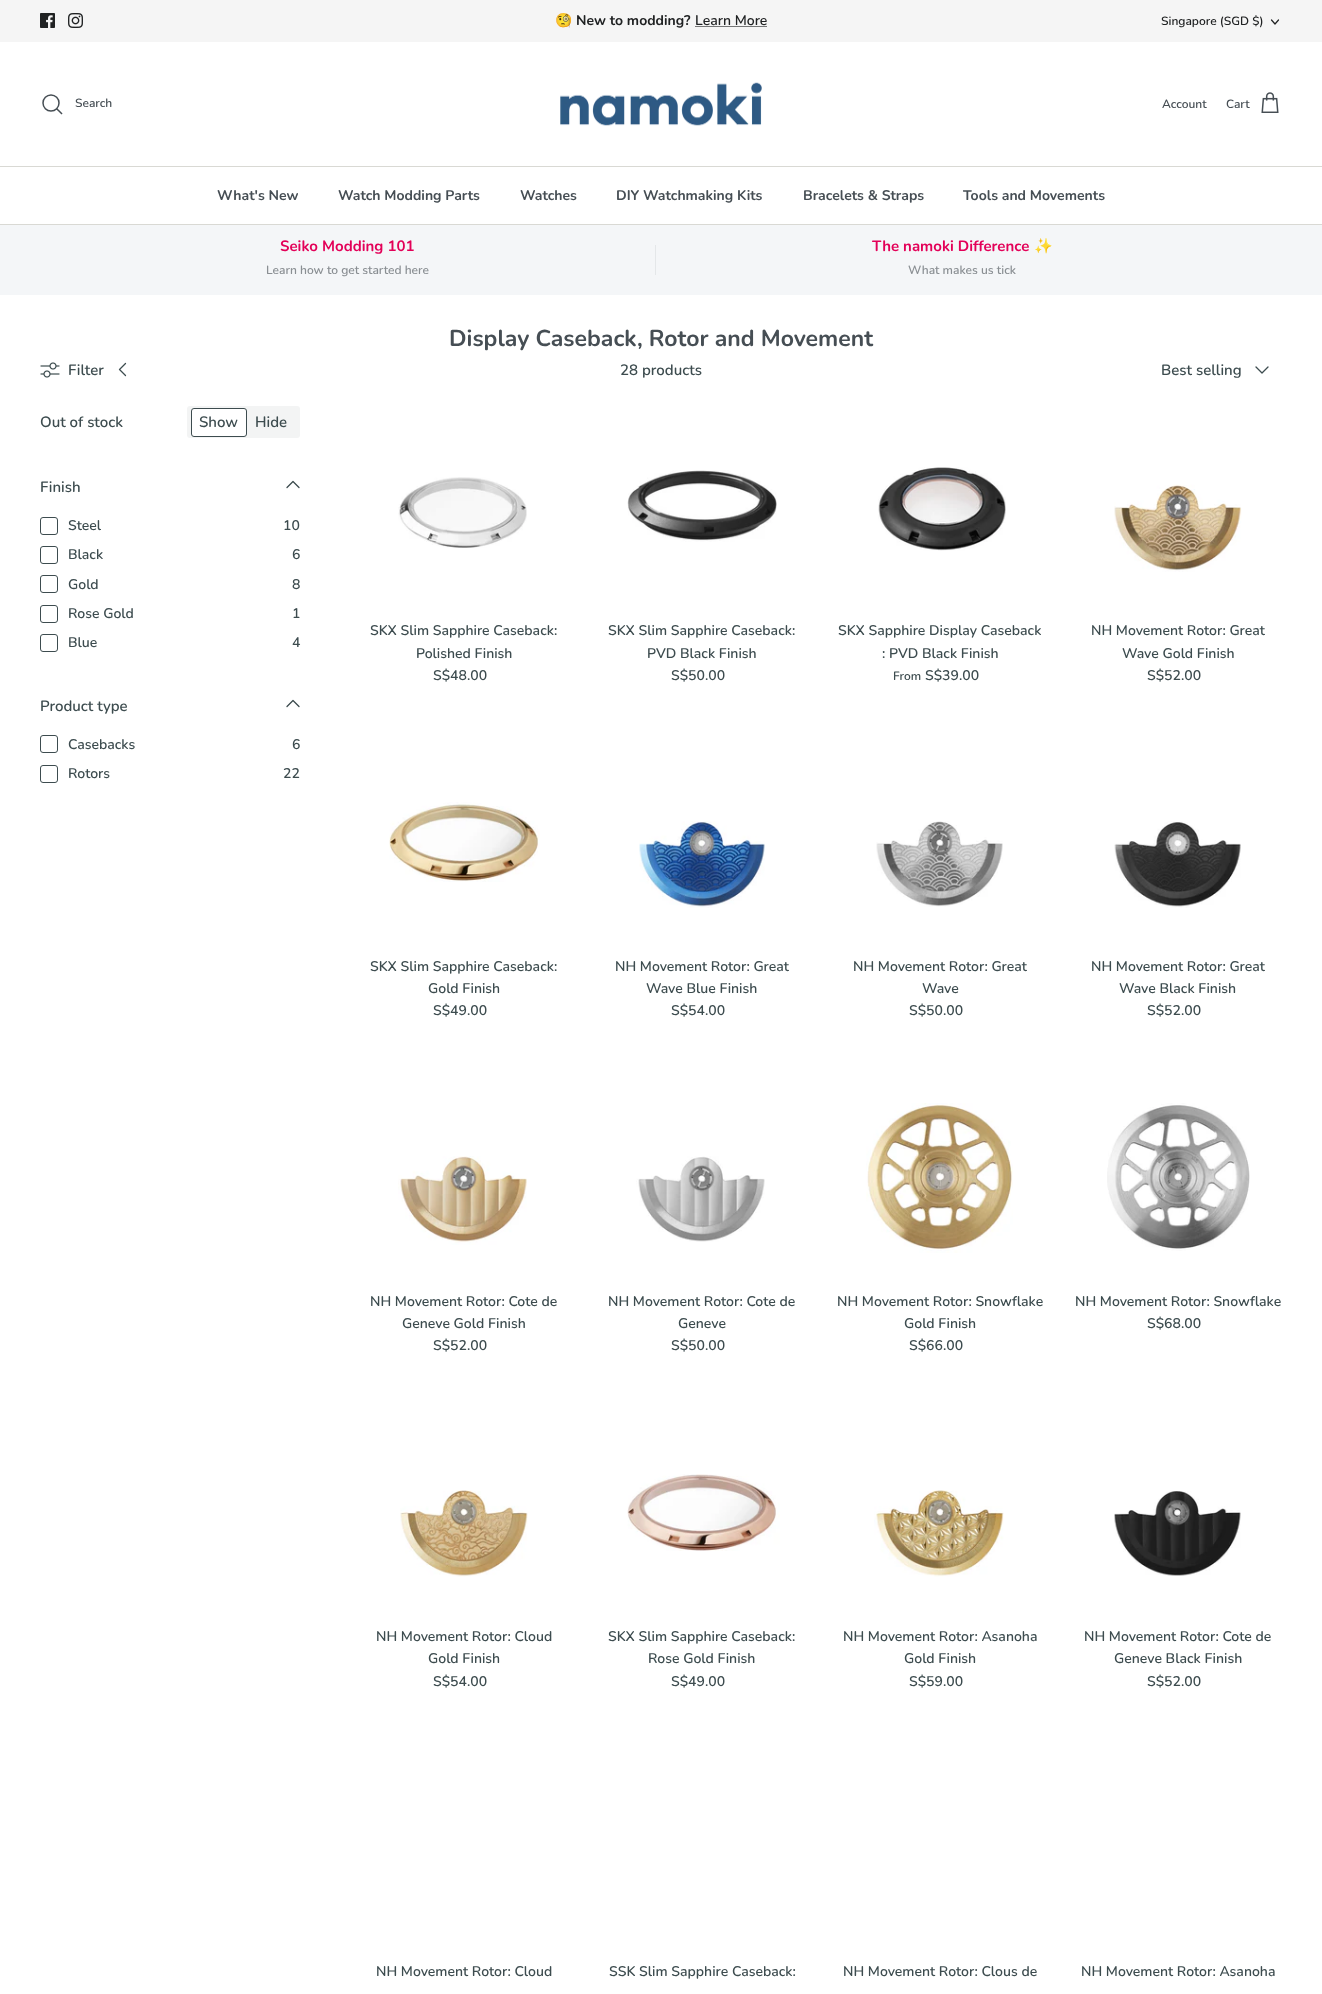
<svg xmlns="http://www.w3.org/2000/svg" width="1322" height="1994">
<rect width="100%" height="100%" fill="#fff"/>
<rect width="1322" height="42" fill="#f5f5f5"/>
<image x="40" y="13" width="15" height="15" href="media/1.png"/>
<image x="68" y="13" width="15" height="15" href="media/2.png"/>
<text x="555" y="25" style="font-family:Noto Color Emoji;font-size:14px;font-weight:bold;fill:#202223">🧐</text>
<text x="576" y="25" style="font-family:Nunito;font-size:14px;font-weight:bold;fill:#202223">New to modding?</text>
<text x="695" y="25" style="font-family:Nunito;font-size:14px;font-weight:600;fill:#202223">Learn More</text>
<rect x="695" y="26" width="72" height="1" fill="#757677"/>
<text x="1161" y="25" style="font-family:Nunito;font-size:12px;font-weight:600;fill:#202223">Singapore (SGD $)</text>
<path d="M1271.5 20l3.5 4l3.5-4" fill="none" stroke="#202223" stroke-width="1.2" stroke-linecap="round" stroke-linejoin="round"/>
<rect y="166" width="1322" height="1" fill="#d9d9d4"/>
<circle cx="51" cy="103" r="8" fill="none" stroke="#464e54" stroke-width="1.5"/>
<text x="75" y="107" style="font-family:Nunito;font-size:12px;font-weight:600;fill:#464e54">Search</text>
<path d="M57 109l4.5 4.5" fill="none" stroke="#464e54" stroke-width="1.5" stroke-linecap="square"/>
<image x="560" y="82" width="202" height="44" href="media/3.png"/>
<text x="1162" y="108" style="font-family:Nunito;font-size:12px;font-weight:600;fill:#464e54">Account</text>
<text x="1226" y="108" style="font-family:Nunito;font-size:12px;font-weight:600;fill:#464e54">Cart</text>
<image x="1261" y="92" width="18" height="21" href="media/4.png"/>
<rect y="224" width="1322" height="1" fill="#d9d9d4"/>
<text x="217" y="200" style="font-family:Nunito;font-size:14px;font-weight:bold;fill:#464e54">What's New</text>
<text x="338" y="200" style="font-family:Nunito;font-size:14px;font-weight:bold;fill:#464e54">Watch Modding Parts</text>
<text x="520" y="200" style="font-family:Nunito;font-size:14px;font-weight:bold;fill:#464e54">Watches</text>
<text x="616" y="200" style="font-family:Nunito;font-size:14px;font-weight:bold;fill:#464e54">DIY Watchmaking Kits</text>
<text x="803" y="200" style="font-family:Nunito;font-size:14px;font-weight:bold;fill:#464e54">Bracelets &amp; Straps</text>
<text x="963" y="200" style="font-family:Nunito;font-size:14px;font-weight:bold;fill:#464e54">Tools and Movements</text>
<rect y="225" width="1322" height="70" fill="#f4f6f8"/>
<text x="280" y="251" style="font-family:Nunito;font-size:15px;font-weight:bold;fill:#e30058">Seiko Modding 101</text>
<text x="266" y="274" style="font-family:Nunito;font-size:12px;font-weight:600;fill:#8a8f93">Learn how to get started here</text>
<rect x="655" y="245" width="1" height="30" fill="#e4e7e9"/>
<text x="872" y="251" style="font-family:Nunito;font-size:15px;font-weight:bold;fill:#e30058">The namoki Difference</text>
<text x="1034" y="251" style="font-family:Noto Color Emoji;font-size:15px;font-weight:bold;fill:#e30058">✨</text>
<text x="908" y="274" style="font-family:Nunito;font-size:12px;font-weight:600;fill:#8a8f93">What makes us tick</text>
<text x="449" y="346" style="font-family:Nunito;font-size:23px;font-weight:bold;fill:#464e54">Display Caseback, Rotor and Movement</text>
<image x="40" y="362" width="20" height="16" href="media/5.png"/>
<text x="68" y="375" style="font-family:Nunito;font-size:15px;font-weight:600;fill:#3d4c4f">Filter</text>
<path d="M125.5 363.5l-6 6l6 6" fill="none" stroke="#3d4c4f" stroke-width="1.3" stroke-linecap="round" stroke-linejoin="round"/>
<text x="620" y="375" style="font-family:Nunito;font-size:15px;font-weight:600;fill:#3d4c4f">28 products</text>
<text x="1161" y="375" style="font-family:Nunito;font-size:15px;font-weight:600;fill:#3d4c4f">Best selling</text>
<path d="M1256 367l6 6l6-6" fill="none" stroke="#3d4c4f" stroke-width="1.3" stroke-linecap="round" stroke-linejoin="round"/>
<text x="40" y="427" style="font-family:Nunito;font-size:15px;font-weight:600;fill:#3d4c4f">Out of stock</text>
<rect x="187" y="406" width="113" height="32" rx="3" fill="#f3f4f4"/>
<rect x="191.5" y="408.5" width="55" height="28" rx="2.5" fill="#fff" stroke="#3d4c4f"/>
<text x="199" y="427" style="font-family:Nunito;font-size:15px;font-weight:600;fill:#3d4c4f">Show</text>
<text x="255" y="427" style="font-family:Nunito;font-size:15px;font-weight:600;fill:#3d4c4f">Hide</text>
<text x="40" y="492" style="font-family:Nunito;font-size:15px;font-weight:600;fill:#3d4c4f">Finish</text>
<path d="M299 487.5l-6-6l-6 6" fill="none" stroke="#3d4c4f" stroke-width="1.3" stroke-linecap="round" stroke-linejoin="round"/>
<rect x="40.5" y="517.5" width="17" height="17" rx="2.5" fill="none" stroke="#3d4c4f"/>
<text x="68" y="530" style="font-family:Nunito;font-size:14px;font-weight:600;fill:#3d4c4f">Steel</text>
<text x="283" y="530" style="font-family:Nunito;font-size:14px;font-weight:600;fill:#3d4c4f">10</text>
<rect x="40.5" y="546.5" width="17" height="17" rx="2.5" fill="none" stroke="#3d4c4f"/>
<text x="68" y="559" style="font-family:Nunito;font-size:14px;font-weight:600;fill:#3d4c4f">Black</text>
<text x="292" y="559" style="font-family:Nunito;font-size:14px;font-weight:600;fill:#3d4c4f">6</text>
<rect x="40.5" y="575.5" width="17" height="17" rx="2.5" fill="none" stroke="#3d4c4f"/>
<text x="68" y="589" style="font-family:Nunito;font-size:14px;font-weight:600;fill:#3d4c4f">Gold</text>
<text x="292" y="589" style="font-family:Nunito;font-size:14px;font-weight:600;fill:#3d4c4f">8</text>
<rect x="40.5" y="605.5" width="17" height="17" rx="2.5" fill="none" stroke="#3d4c4f"/>
<text x="68" y="618" style="font-family:Nunito;font-size:14px;font-weight:600;fill:#3d4c4f">Rose Gold</text>
<text x="292" y="618" style="font-family:Nunito;font-size:14px;font-weight:600;fill:#3d4c4f">1</text>
<rect x="40.5" y="634.5" width="17" height="17" rx="2.5" fill="none" stroke="#3d4c4f"/>
<text x="68" y="647" style="font-family:Nunito;font-size:14px;font-weight:600;fill:#3d4c4f">Blue</text>
<text x="292" y="647" style="font-family:Nunito;font-size:14px;font-weight:600;fill:#3d4c4f">4</text>
<text x="40" y="711" style="font-family:Nunito;font-size:15px;font-weight:600;fill:#3d4c4f">Product type</text>
<path d="M299 706.5l-6-6l-6 6" fill="none" stroke="#3d4c4f" stroke-width="1.3" stroke-linecap="round" stroke-linejoin="round"/>
<rect x="40.5" y="735.5" width="17" height="17" rx="2.5" fill="none" stroke="#3d4c4f"/>
<text x="68" y="749" style="font-family:Nunito;font-size:14px;font-weight:600;fill:#3d4c4f">Casebacks</text>
<text x="292" y="749" style="font-family:Nunito;font-size:14px;font-weight:600;fill:#3d4c4f">6</text>
<rect x="40.5" y="765.5" width="17" height="17" rx="2.5" fill="none" stroke="#3d4c4f"/>
<text x="68" y="778" style="font-family:Nunito;font-size:14px;font-weight:600;fill:#3d4c4f">Rotors</text>
<text x="283" y="778" style="font-family:Nunito;font-size:14px;font-weight:600;fill:#3d4c4f">22</text>
<image x="398" y="477" width="129" height="71" href="media/6.png"/>
<text x="370" y="635" style="font-family:Nunito;font-size:14px;font-weight:600;fill:#3d4c4f">SKX Slim Sapphire Caseback:</text>
<text x="416" y="658" style="font-family:Nunito;font-size:14px;font-weight:600;fill:#3d4c4f">Polished Finish</text>
<text x="433" y="680" style="font-family:Nunito;font-size:14px;font-weight:600;fill:#3d4c4f">S$48.00</text>
<image x="627" y="470" width="150" height="72" href="media/7.png"/>
<text x="608" y="635" style="font-family:Nunito;font-size:14px;font-weight:600;fill:#3d4c4f">SKX Slim Sapphire Caseback:</text>
<text x="647" y="658" style="font-family:Nunito;font-size:14px;font-weight:600;fill:#3d4c4f">PVD Black Finish</text>
<text x="671" y="680" style="font-family:Nunito;font-size:14px;font-weight:600;fill:#3d4c4f">S$50.00</text>
<image x="878" y="467" width="128" height="84" href="media/8.png"/>
<text x="838" y="635" style="font-family:Nunito;font-size:14px;font-weight:600;fill:#3d4c4f">SKX Sapphire Display Caseback</text>
<text x="882" y="658" style="font-family:Nunito;font-size:14px;font-weight:600;fill:#3d4c4f">: PVD Black Finish</text>
<text x="893" y="680" style="font-family:Nunito;font-size:12px;font-weight:600;fill:#3d4c4f">From</text>
<text x="925" y="680" style="font-family:Nunito;font-size:14px;font-weight:600;fill:#3d4c4f">S$39.00</text>
<image x="1114" y="484" width="128" height="88" href="media/9.png"/>
<text x="1091" y="635" style="font-family:Nunito;font-size:14px;font-weight:600;fill:#3d4c4f">NH Movement Rotor: Great</text>
<text x="1122" y="658" style="font-family:Nunito;font-size:14px;font-weight:600;fill:#3d4c4f">Wave Gold Finish</text>
<text x="1147" y="680" style="font-family:Nunito;font-size:14px;font-weight:600;fill:#3d4c4f">S$52.00</text>
<image x="389" y="802" width="151" height="80" href="media/10.png"/>
<text x="370" y="971" style="font-family:Nunito;font-size:14px;font-weight:600;fill:#3d4c4f">SKX Slim Sapphire Caseback:</text>
<text x="428" y="993" style="font-family:Nunito;font-size:14px;font-weight:600;fill:#3d4c4f">Gold Finish</text>
<text x="433" y="1015" style="font-family:Nunito;font-size:14px;font-weight:600;fill:#3d4c4f">S$49.00</text>
<image x="639" y="821" width="126" height="87" href="media/11.png"/>
<text x="615" y="971" style="font-family:Nunito;font-size:14px;font-weight:600;fill:#3d4c4f">NH Movement Rotor: Great</text>
<text x="646" y="993" style="font-family:Nunito;font-size:14px;font-weight:600;fill:#3d4c4f">Wave Blue Finish</text>
<text x="671" y="1015" style="font-family:Nunito;font-size:14px;font-weight:600;fill:#3d4c4f">S$54.00</text>
<image x="876" y="821" width="127" height="86" href="media/12.png"/>
<text x="853" y="971" style="font-family:Nunito;font-size:14px;font-weight:600;fill:#3d4c4f">NH Movement Rotor: Great</text>
<text x="922" y="993" style="font-family:Nunito;font-size:14px;font-weight:600;fill:#3d4c4f">Wave</text>
<text x="909" y="1015" style="font-family:Nunito;font-size:14px;font-weight:600;fill:#3d4c4f">S$50.00</text>
<image x="1114" y="821" width="127" height="87" href="media/13.png"/>
<text x="1091" y="971" style="font-family:Nunito;font-size:14px;font-weight:600;fill:#3d4c4f">NH Movement Rotor: Great</text>
<text x="1119" y="993" style="font-family:Nunito;font-size:14px;font-weight:600;fill:#3d4c4f">Wave Black Finish</text>
<text x="1147" y="1015" style="font-family:Nunito;font-size:14px;font-weight:600;fill:#3d4c4f">S$52.00</text>
<image x="398" y="1156" width="129" height="89" href="media/14.png"/>
<text x="370" y="1306" style="font-family:Nunito;font-size:14px;font-weight:600;fill:#3d4c4f">NH Movement Rotor: Cote de</text>
<text x="402" y="1328" style="font-family:Nunito;font-size:14px;font-weight:600;fill:#3d4c4f">Geneve Gold Finish</text>
<text x="433" y="1350" style="font-family:Nunito;font-size:14px;font-weight:600;fill:#3d4c4f">S$52.00</text>
<image x="636" y="1156" width="129" height="86" href="media/15.png"/>
<text x="608" y="1306" style="font-family:Nunito;font-size:14px;font-weight:600;fill:#3d4c4f">NH Movement Rotor: Cote de</text>
<text x="678" y="1328" style="font-family:Nunito;font-size:14px;font-weight:600;fill:#3d4c4f">Geneve</text>
<text x="671" y="1350" style="font-family:Nunito;font-size:14px;font-weight:600;fill:#3d4c4f">S$50.00</text>
<image x="866" y="1103" width="147" height="150" href="media/16.png"/>
<text x="837" y="1306" style="font-family:Nunito;font-size:14px;font-weight:600;fill:#3d4c4f">NH Movement Rotor: Snowflake</text>
<text x="904" y="1328" style="font-family:Nunito;font-size:14px;font-weight:600;fill:#3d4c4f">Gold Finish</text>
<text x="909" y="1350" style="font-family:Nunito;font-size:14px;font-weight:600;fill:#3d4c4f">S$66.00</text>
<image x="1107" y="1103" width="143" height="148" href="media/17.png"/>
<text x="1075" y="1306" style="font-family:Nunito;font-size:14px;font-weight:600;fill:#3d4c4f">NH Movement Rotor: Snowflake</text>
<text x="1147" y="1328" style="font-family:Nunito;font-size:14px;font-weight:600;fill:#3d4c4f">S$68.00</text>
<image x="400" y="1490" width="128" height="87" href="media/18.png"/>
<text x="376" y="1641" style="font-family:Nunito;font-size:14px;font-weight:600;fill:#3d4c4f">NH Movement Rotor: Cloud</text>
<text x="428" y="1663" style="font-family:Nunito;font-size:14px;font-weight:600;fill:#3d4c4f">Gold Finish</text>
<text x="433" y="1686" style="font-family:Nunito;font-size:14px;font-weight:600;fill:#3d4c4f">S$54.00</text>
<image x="627" y="1474" width="153" height="77" href="media/19.png"/>
<text x="608" y="1641" style="font-family:Nunito;font-size:14px;font-weight:600;fill:#3d4c4f">SKX Slim Sapphire Caseback:</text>
<text x="648" y="1663" style="font-family:Nunito;font-size:14px;font-weight:600;fill:#3d4c4f">Rose Gold Finish</text>
<text x="671" y="1686" style="font-family:Nunito;font-size:14px;font-weight:600;fill:#3d4c4f">S$49.00</text>
<image x="874" y="1490" width="130" height="87" href="media/20.png"/>
<text x="843" y="1641" style="font-family:Nunito;font-size:14px;font-weight:600;fill:#3d4c4f">NH Movement Rotor: Asanoha</text>
<text x="904" y="1663" style="font-family:Nunito;font-size:14px;font-weight:600;fill:#3d4c4f">Gold Finish</text>
<text x="909" y="1686" style="font-family:Nunito;font-size:14px;font-weight:600;fill:#3d4c4f">S$59.00</text>
<image x="1114" y="1491" width="127" height="85" href="media/21.png"/>
<text x="1084" y="1641" style="font-family:Nunito;font-size:14px;font-weight:600;fill:#3d4c4f">NH Movement Rotor: Cote de</text>
<text x="1114" y="1663" style="font-family:Nunito;font-size:14px;font-weight:600;fill:#3d4c4f">Geneve Black Finish</text>
<text x="1147" y="1686" style="font-family:Nunito;font-size:14px;font-weight:600;fill:#3d4c4f">S$52.00</text>
<text x="376" y="1976" style="font-family:Nunito;font-size:14px;font-weight:600;fill:#3d4c4f">NH Movement Rotor: Cloud</text>
<text x="609" y="1976" style="font-family:Nunito;font-size:14px;font-weight:600;fill:#3d4c4f">SSK Slim Sapphire Caseback:</text>
<text x="843" y="1976" style="font-family:Nunito;font-size:14px;font-weight:600;fill:#3d4c4f">NH Movement Rotor: Clous de</text>
<text x="1081" y="1976" style="font-family:Nunito;font-size:14px;font-weight:600;fill:#3d4c4f">NH Movement Rotor: Asanoha</text>
</svg>
